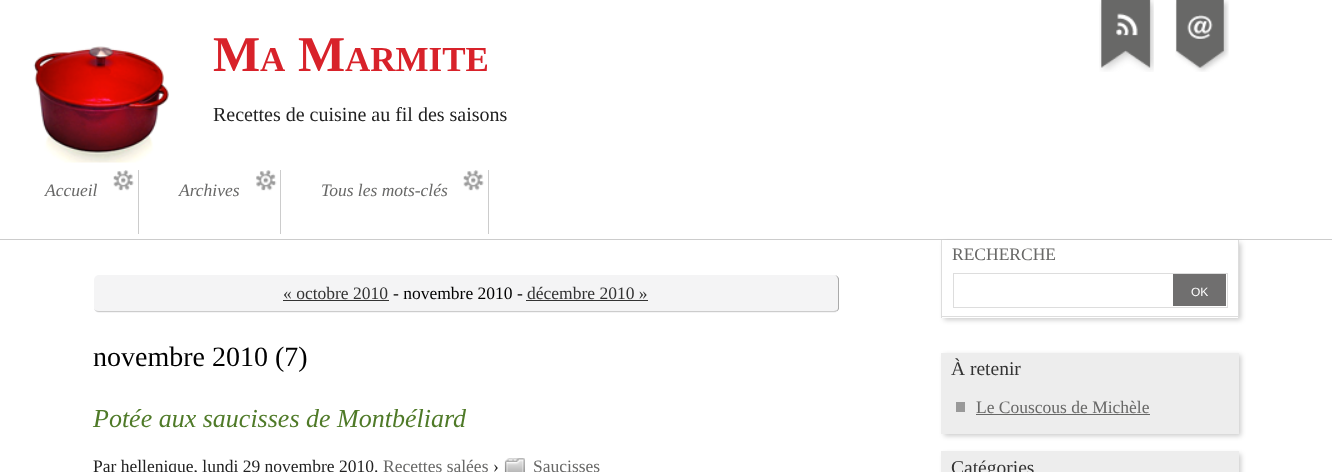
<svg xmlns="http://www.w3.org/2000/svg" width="1332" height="472">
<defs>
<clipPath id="clip1"><path d="M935 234h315v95h-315zm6 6h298v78h-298z" clip-rule="evenodd"/></clipPath>
</defs>
<rect width="100%" height="100%" fill="#fff"/>
<image x="33" y="46" width="136" height="117" href="media/1.png"/>
<text x="213" y="71" style="font-family:Liberation Serif;font-size:50px;font-weight:bold;fill:#d8222a">M</text>
<text x="260" y="71" style="font-family:Liberation Serif;font-size:35px;font-weight:bold;fill:#d8222a">A</text>
<text x="298" y="71" style="font-family:Liberation Serif;font-size:50px;font-weight:bold;fill:#d8222a">M</text>
<text x="345" y="71" style="font-family:Liberation Serif;font-size:35px;font-weight:bold;fill:#d8222a">ARMITE</text>
<text x="213" y="121" style="font-family:Liberation Serif;font-size:20px;fill:#222">Recettes de cuisine au fil des saisons</text>
<rect y="239" width="1332" height="1" fill="#ccc"/>
<image x="113" y="170" width="21" height="21" href="media/2.png"/>
<rect x="138" y="170" width="1" height="64" fill="#ccc"/>
<text x="45" y="196" style="font-family:Liberation Serif;font-size:17.5px;font-style:italic;fill:#686867">Accueil</text>
<image x="256" y="170" width="21" height="21" href="media/3.png"/>
<rect x="280" y="170" width="1" height="64" fill="#ccc"/>
<text x="179" y="196" style="font-family:Liberation Serif;font-size:17.5px;font-style:italic;fill:#686867">Archives</text>
<image x="463" y="170" width="21" height="21" href="media/2.png"/>
<rect x="488" y="170" width="1" height="64" fill="#ccc"/>
<text x="321" y="196" style="font-family:Liberation Serif;font-size:17.5px;font-style:italic;fill:#686867">Tous les mots-clés</text>
<image x="1099" y="0" width="55" height="72" href="media/4.png"/>
<image x="1175" y="0" width="54" height="72" href="media/5.png"/>
<rect x="94" y="275" width="745" height="38" rx="5" fill="#f4f4f5"/>
<path d="M839 278.5c-1-2-2.5-3.5-5-3.5c2 0 4 2 4 5v28c0 1-.5 2-1.5 2.5l1 .5l1.5-2z" fill="#aaa"/>
<path d="M837 311v-1l-3 1h-735c-3 0-5-1-5-3c0 2 2 4 5 4h735c1 0 2 0 3-1z" fill="#ccc"/>
<text x="283" y="299" style="font-family:Liberation Serif;font-size:17.5px;fill:#333">« octobre 2010</text>
<rect x="283" y="300" width="106" height="1" fill="#333"/>
<text x="393" y="299" style="font-family:Liberation Serif;font-size:17.5px;fill:#000">- novembre 2010 -</text>
<text x="527" y="299" style="font-family:Liberation Serif;font-size:17.5px;fill:#333">décembre 2010 »</text>
<rect x="526" y="300" width="122" height="1" fill="#333"/>
<text x="93" y="366" style="font-family:Liberation Serif;font-size:28px;fill:#000">novembre 2010 (7)</text>
<text x="93" y="427" style="font-family:Liberation Serif;font-size:26px;font-style:italic;fill:#4f7a28">Potée aux saucisses de Montbéliard</text>
<text x="93" y="472" style="font-family:Liberation Serif;font-size:17.5px;fill:#222">Par hellenique, lundi 29 novembre 2010.</text>
<text x="383" y="472" style="font-family:Liberation Serif;font-size:17.5px;fill:#686867">Recettes salées</text>
<text x="493" y="472" style="font-family:Liberation Serif;font-size:17.5px;fill:#222">›</text>
<image x="504" y="458" width="21" height="14" href="media/6.png"/>
<text x="533" y="472" style="font-family:Liberation Serif;font-size:17.5px;fill:#686867">Saucisses</text>
<g clip-path="url(#clip1)">
<rect x="944" y="243" width="297" height="77" fill="#00000033" filter="blur(2.5px)"/>
</g>
<rect x="1238" y="240" width="1" height="78" fill="#ddd"/>
<rect x="941" y="316" width="298" height="1" fill="#ddd"/>
<rect x="941" y="240" width="1" height="78" fill="#ddd"/>
<text x="952" y="260" style="font-family:Liberation Serif;font-size:17.5px;fill:#686867">RECHERCHE</text>
<rect x="953.5" y="273.5" width="274" height="34" fill="none" stroke="#ddd"/>
<rect x="1173" y="274" width="53" height="32" fill="#706f6f"/>
<text x="1191" y="296" style="font-family:Liberation Sans;font-size:12px;fill:#fff">OK</text>
<rect x="944" y="355" width="297" height="81" fill="#00000033" filter="blur(2.5px)"/>
<rect x="941" y="353" width="298" height="81" fill="#ededed"/>
<text x="951" y="375" style="font-family:Liberation Serif;font-size:19.5px;fill:#333">À retenir</text>
<rect x="956" y="402" width="9" height="10" fill="#999"/>
<text x="976" y="413" style="font-family:Liberation Serif;font-size:17.5px;fill:#686867">Le Couscous de Michèle</text>
<rect x="976" y="414" width="174" height="1" fill="#686867"/>
<rect x="944" y="454" width="297" height="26" fill="#00000033" filter="blur(2.5px)"/>
<rect x="941" y="451" width="298" height="21" fill="#ededed"/>
<text x="951" y="474" style="font-family:Liberation Serif;font-size:19.5px;fill:#333">Catégories</text>
</svg>
